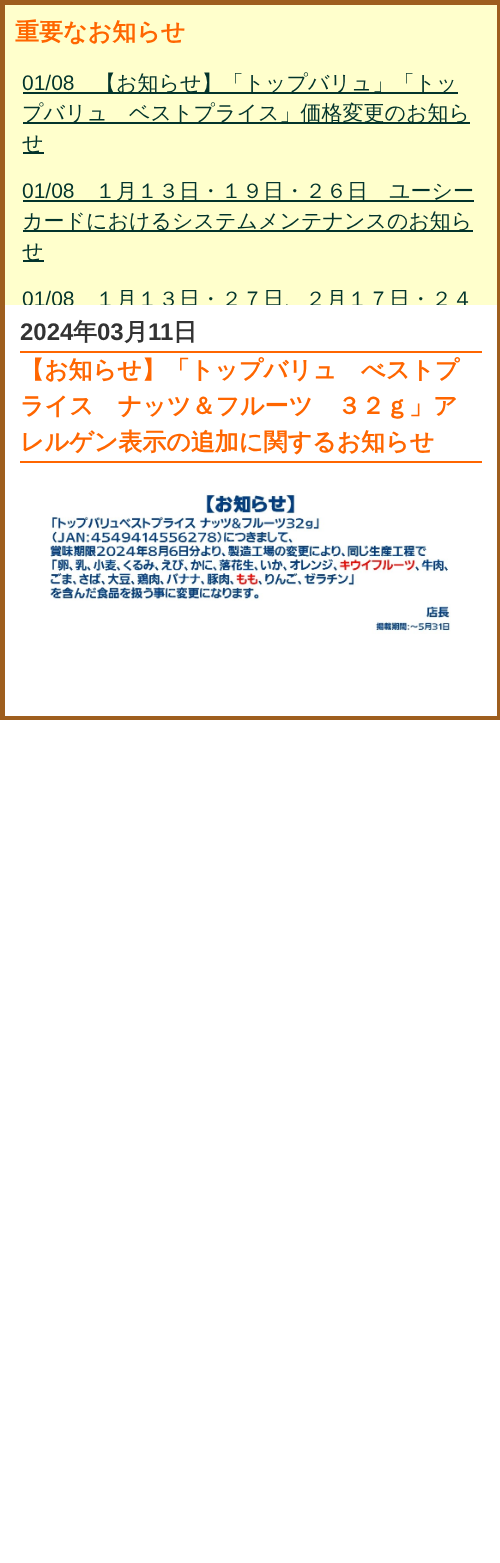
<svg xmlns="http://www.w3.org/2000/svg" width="500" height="1563">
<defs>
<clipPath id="clip1"><rect x="5" y="5" width="492" height="300"/></clipPath>
</defs>
<rect width="100%" height="100%" fill="#fff"/>
<rect width="500" height="720" fill="#9e5e1e"/>
<rect x="5" y="5" width="492" height="300" fill="#ffc"/>
<text x="15" y="40" style="font-family:WenQuanYi Zen Hei;font-size:24px;font-weight:bold;fill:#f60">重要なお知らせ</text>
<text x="22" y="90" style="font-family:Liberation Sans;font-size:21px;fill:#03342c">01/08</text>
<rect x="23" y="92" width="435" height="2" fill="#03342c"/>
<text x="95" y="90" style="font-family:WenQuanYi Zen Hei;font-size:21px;font-weight:500;fill:#03342c">【お知らせ】「トップバリュ」「トッ</text>
<rect x="23" y="122" width="447" height="2" fill="#03342c"/>
<text x="22" y="120" style="font-family:WenQuanYi Zen Hei;font-size:21px;font-weight:500;fill:#03342c">プバリュ　ベストプライス」価格変更のお知ら</text>
<rect x="23" y="152" width="21" height="2" fill="#03342c"/>
<text x="22" y="150" style="font-family:WenQuanYi Zen Hei;font-size:21px;font-weight:500;fill:#03342c">せ</text>
<text x="22" y="198" style="font-family:Liberation Sans;font-size:21px;fill:#03342c">01/08</text>
<rect x="23" y="200" width="451" height="2" fill="#03342c"/>
<text x="95" y="198" style="font-family:WenQuanYi Zen Hei;font-size:21px;font-weight:500;fill:#03342c">１月１３日・１９日・２６日　ユーシー</text>
<rect x="23" y="230" width="450" height="2" fill="#03342c"/>
<text x="22" y="228" style="font-family:WenQuanYi Zen Hei;font-size:21px;font-weight:500;fill:#03342c">カードにおけるシステムメンテナンスのお知ら</text>
<rect x="23" y="260" width="21" height="2" fill="#03342c"/>
<text x="22" y="258" style="font-family:WenQuanYi Zen Hei;font-size:21px;font-weight:500;fill:#03342c">せ</text>
<g clip-path="url(#clip1)">
<text x="22" y="306" style="font-family:Liberation Sans;font-size:21px;fill:#03342c">01/08</text>
<text x="95" y="306" style="font-family:WenQuanYi Zen Hei;font-size:21px;font-weight:500;fill:#03342c">１月１３日・２７日、２月１７日・２４</text>
</g>
<rect x="5" y="305" width="492" height="411" fill="#fff"/>
<text x="20" y="340" style="font-family:Liberation Sans;font-size:24px;font-weight:bold;fill:#333">2024</text>
<text x="73" y="340" style="font-family:WenQuanYi Zen Hei;font-size:24px;font-weight:bold;fill:#333">年</text>
<text x="97" y="340" style="font-family:Liberation Sans;font-size:24px;font-weight:bold;fill:#333">03</text>
<text x="124" y="340" style="font-family:WenQuanYi Zen Hei;font-size:24px;font-weight:bold;fill:#333">月</text>
<text x="148" y="340" style="font-family:Liberation Sans;font-size:24px;font-weight:bold;fill:#333">11</text>
<text x="173" y="340" style="font-family:WenQuanYi Zen Hei;font-size:24px;font-weight:bold;fill:#333">日</text>
<rect x="20" y="351" width="462" height="2" fill="#f60"/>
<rect x="20" y="461" width="462" height="2" fill="#f60"/>
<text x="20" y="378" style="font-family:WenQuanYi Zen Hei;font-size:24px;font-weight:bold;fill:#f60">【お知らせ】「トップバリュ　べストプ</text>
<text x="20" y="414" style="font-family:WenQuanYi Zen Hei;font-size:24px;font-weight:bold;fill:#f60">ライス　ナッツ＆フルーツ　３２ｇ」ア</text>
<text x="20" y="450" style="font-family:WenQuanYi Zen Hei;font-size:24px;font-weight:bold;fill:#f60">レルゲン表示の追加に関するお知らせ</text>
<image x="50" y="490" width="401" height="144" href="media/1.png"/>
</svg>
